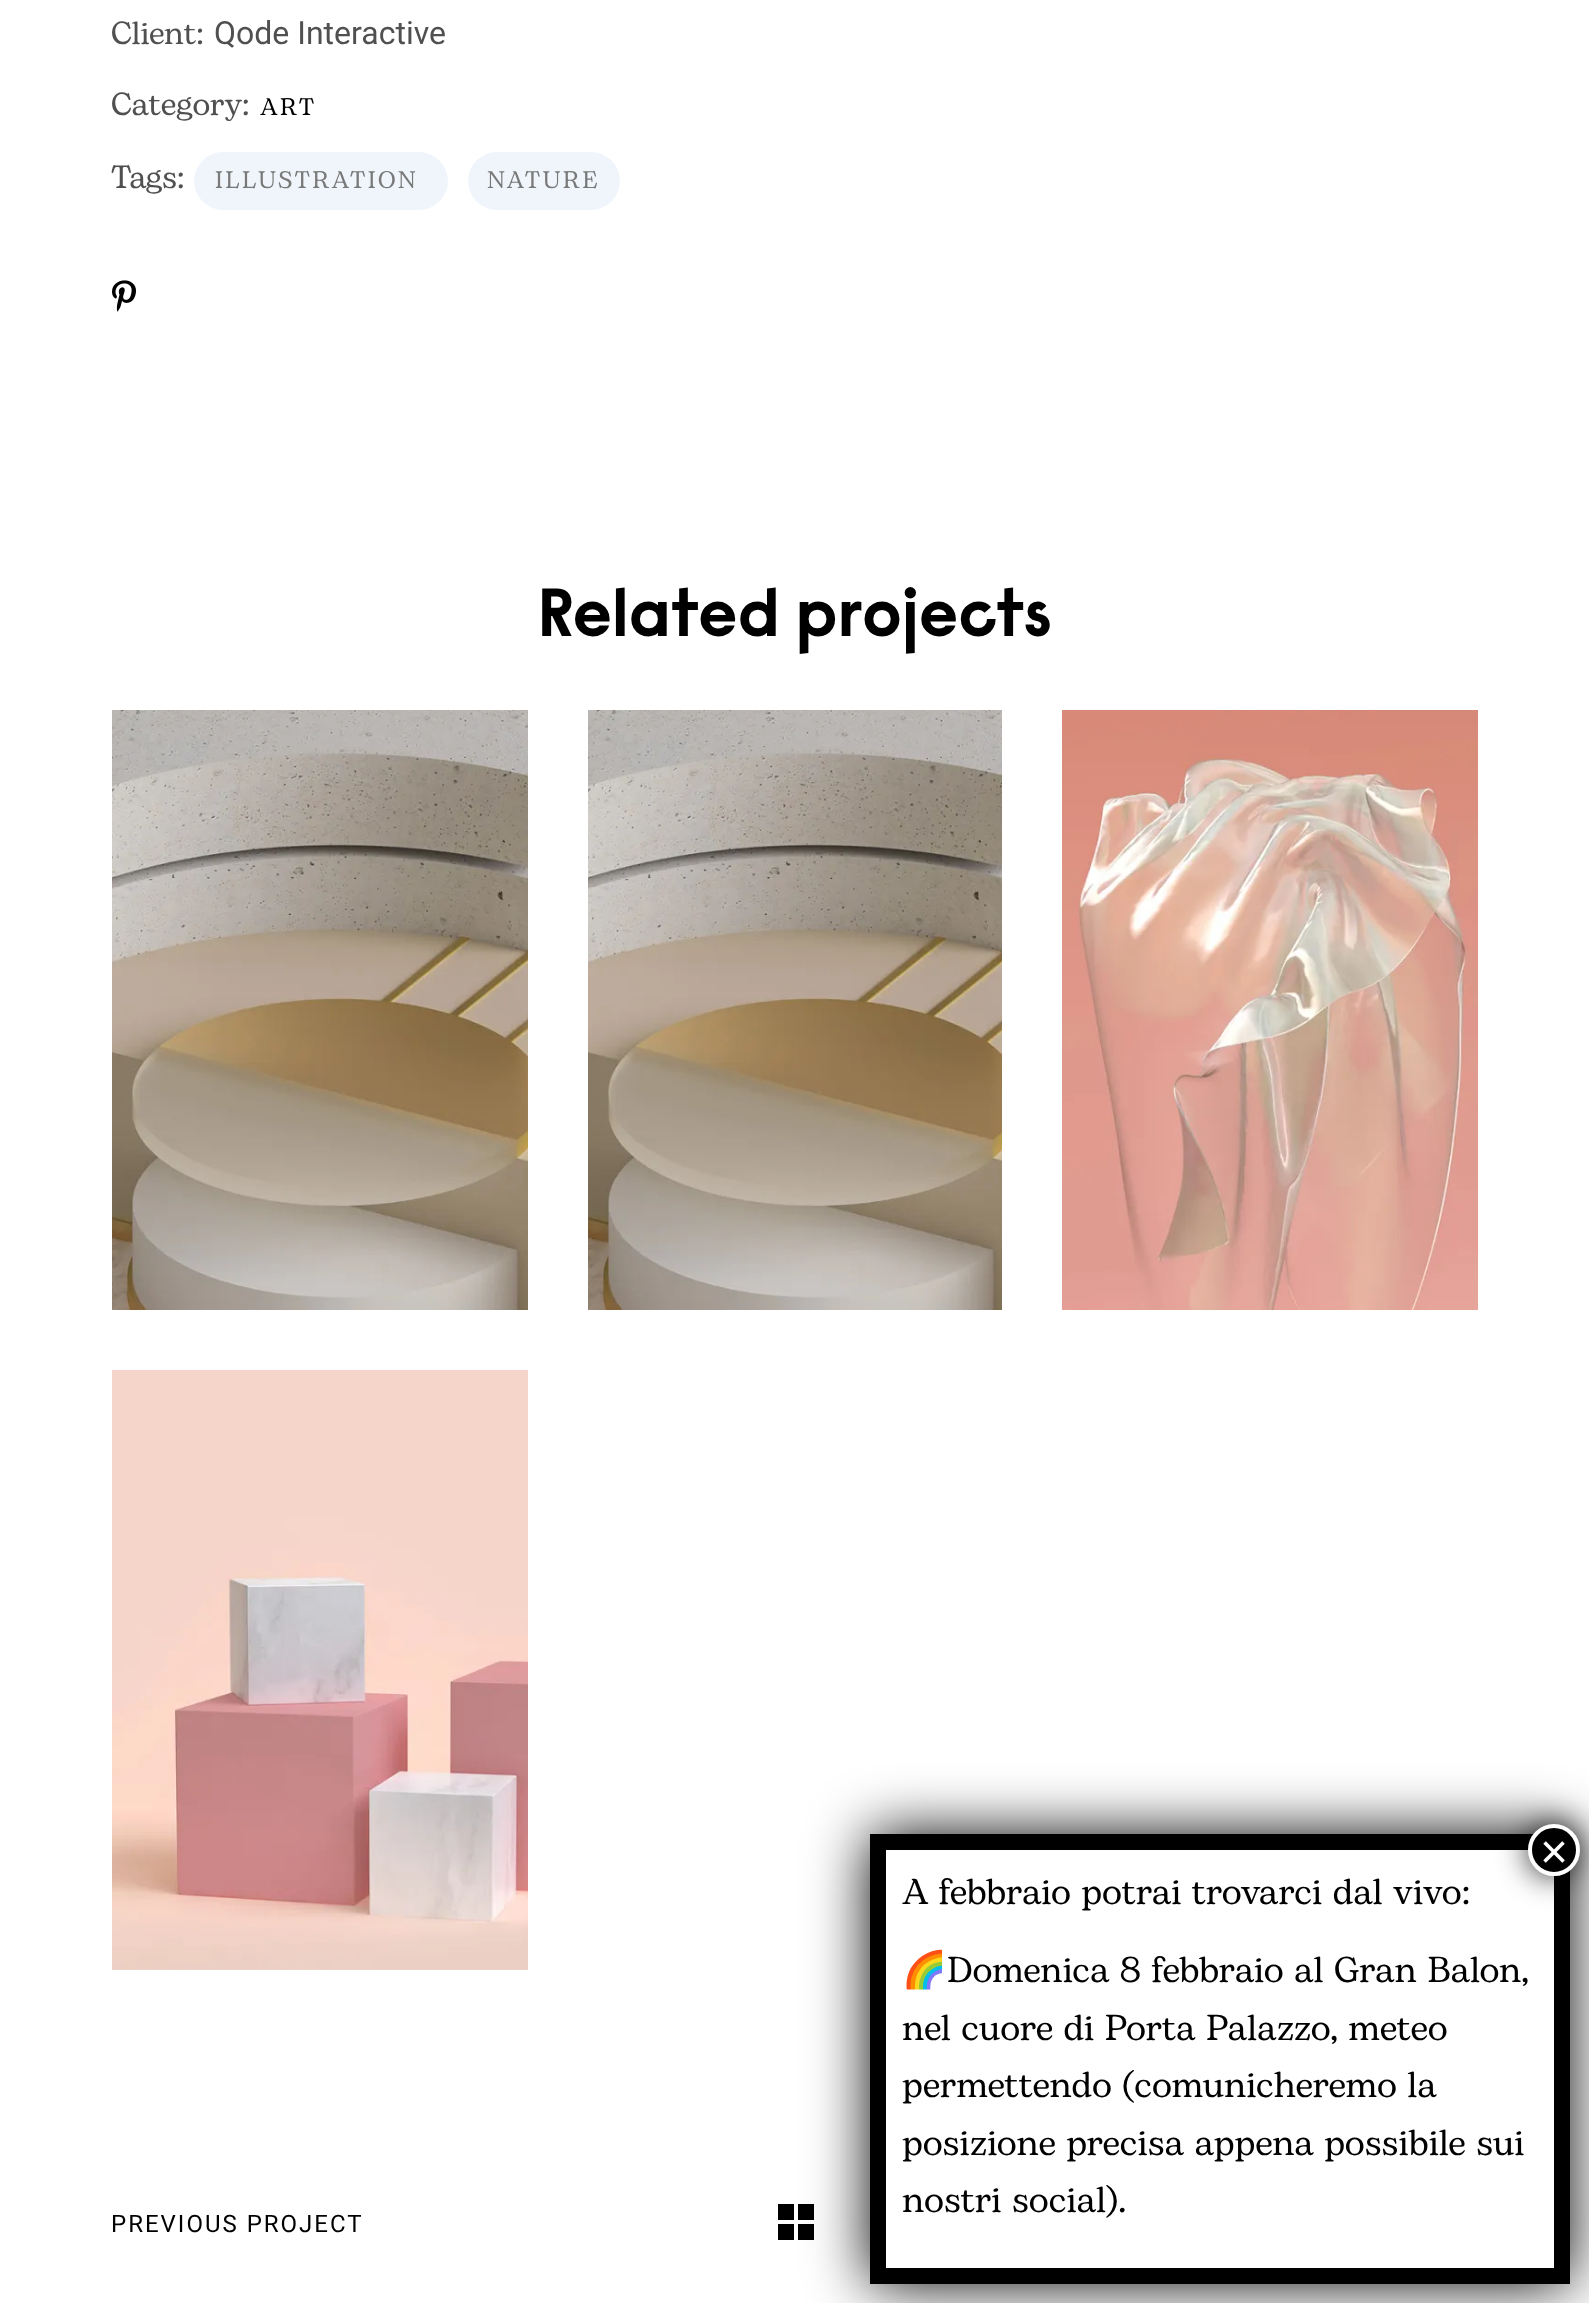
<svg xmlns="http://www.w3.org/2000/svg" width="1589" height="2303">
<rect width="100%" height="100%" fill="#fff"/>
<text x="111" y="44" style="font-family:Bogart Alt;font-size:32px;fill:#505050">Client:</text>
<text x="214" y="44" style="font-family:Roboto;font-size:32px;fill:#505050">Qode Interactive</text>
<text x="111" y="115" style="font-family:Bogart Alt;font-size:32px;fill:#505050">Category:</text>
<text x="260" y="115" style="font-family:Bogart Alt;font-size:24px;letter-spacing:2.4px;fill:#000">ART</text>
<text x="111" y="188" style="font-family:Bogart Alt;font-size:32px;fill:#505050">Tags:</text>
<rect x="194" y="152" width="254" height="58" rx="29" fill="#f0f5fb"/>
<text x="215" y="188" style="font-family:Bogart Alt;font-size:24px;letter-spacing:2.4px;fill:#797979">ILLUSTRATION</text>
<rect x="468" y="152" width="152" height="58" rx="29" fill="#f0f5fb"/>
<text x="487" y="188" style="font-family:Bogart Alt;font-size:24px;letter-spacing:2.4px;fill:#797979">NATURE</text>
<image x="112" y="280" width="24" height="32" href="media/1.png"/>
<text x="538" y="636" style="font-family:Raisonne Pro;font-size:68px;font-weight:bold;fill:#000">Related projects</text>
<image x="112" y="710" width="416" height="600" href="media/2.png"/>
<image x="588" y="710" width="414" height="600" href="media/3.png"/>
<image x="1062" y="710" width="416" height="600" href="media/4.png"/>
<image x="112" y="1370" width="416" height="600" href="media/5.png"/>
<text x="111" y="2232" style="font-family:Roboto;font-size:24px;letter-spacing:2px;fill:#000">PREVIOUS PROJECT</text>
<rect x="778" y="2204" width="16" height="16" fill="#000"/>
<rect x="798" y="2204" width="16" height="16" fill="#000"/>
<rect x="778" y="2224" width="16" height="16" fill="#000"/>
<rect x="798" y="2224" width="16" height="16" fill="#000"/>
<rect x="870" y="1834" width="700" height="450" rx="6" fill="#020202" filter="blur(30px)"/>
<rect x="886" y="1850" width="668" height="418" fill="#fff"/>
<path d="M878 1842h684v434h-684z" fill="none" stroke="#000" stroke-width="16"/>
<rect x="1526" y="1822" width="56" height="56" rx="28" fill="#020202bf" filter="blur(15px)"/>
<circle cx="1554" cy="1850" r="24" fill="#000" stroke="#fff" stroke-width="4"/>
<text x="1540" y="1868" style="font-family:Liberation Sans;font-size:48px;fill:#fff">×</text>
<text x="902" y="1904" style="font-family:Bogart Alt;font-size:36px;fill:#000">A febbraio potrai trovarci dal vivo:</text>
<text x="902" y="1982" style="font-family:Noto Color Emoji;font-size:36px;fill:#000">🌈</text>
<text x="947" y="1982" style="font-family:Bogart Alt;font-size:36px;fill:#000">Domenica 8 febbraio al Gran Balon,</text>
<text x="902" y="2040" style="font-family:Bogart Alt;font-size:36px;fill:#000">nel cuore di Porta Palazzo, meteo</text>
<text x="902" y="2097" style="font-family:Bogart Alt;font-size:36px;fill:#000">permettendo (comunicheremo la</text>
<text x="902" y="2155" style="font-family:Bogart Alt;font-size:36px;fill:#000">posizione precisa appena possibile sui</text>
<text x="902" y="2212" style="font-family:Bogart Alt;font-size:36px;fill:#000">nostri social).</text>
</svg>
